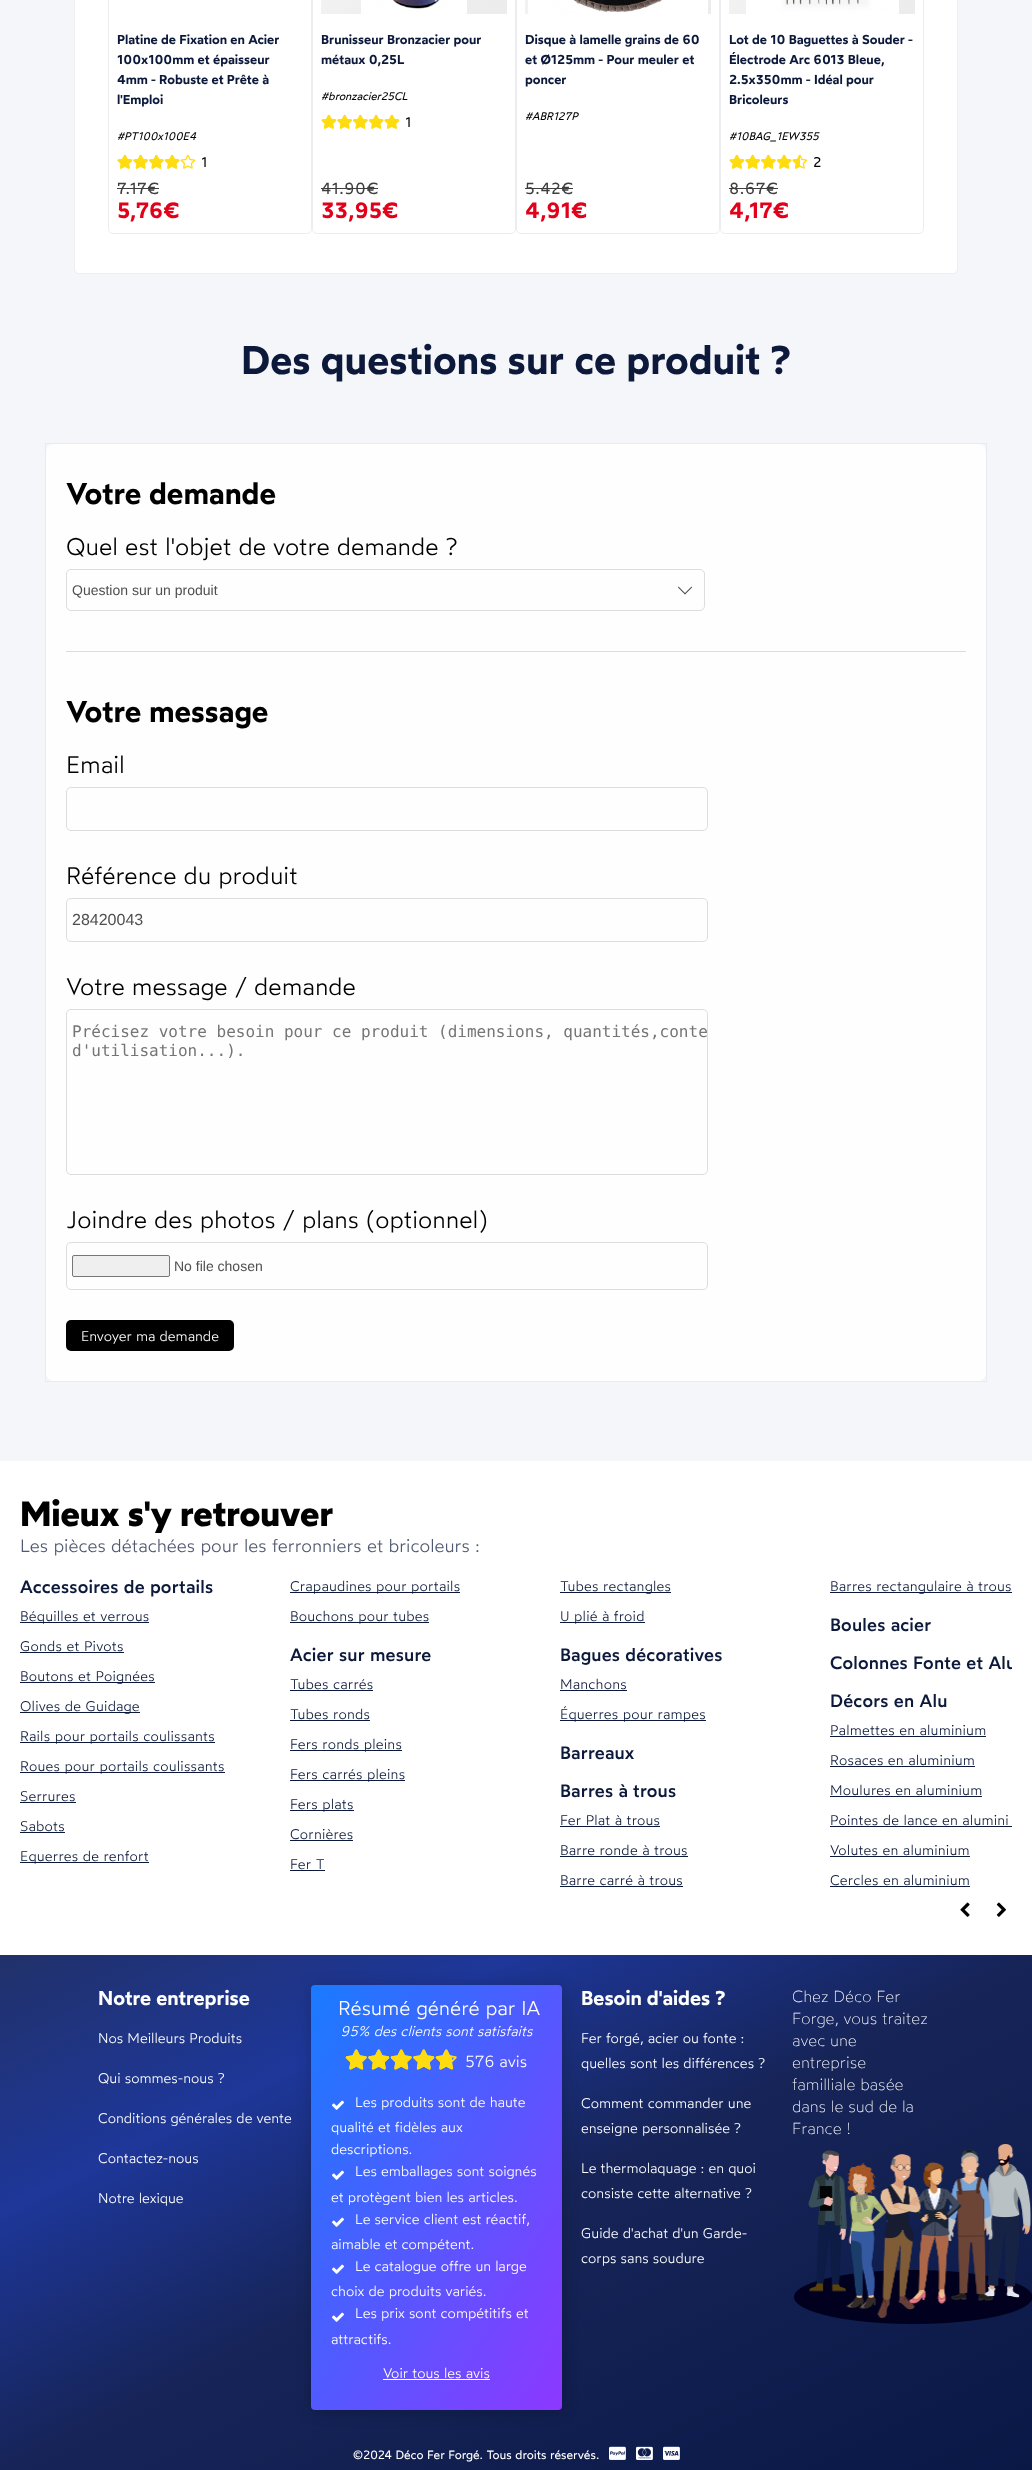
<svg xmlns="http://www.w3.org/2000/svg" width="1032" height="2470">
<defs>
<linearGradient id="g1" gradientUnits="userSpaceOnUse" x1="341" y1="-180" x2="487" y2="28"><stop offset="0" stop-color="#fff"/><stop offset="0.71" stop-color="#eee"/><stop offset="1" stop-color="#ececec"/></linearGradient>
<linearGradient id="g2" gradientUnits="userSpaceOnUse" x1="545" y1="-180" x2="691" y2="28"><stop offset="0" stop-color="#fff"/><stop offset="0.71" stop-color="#eee"/><stop offset="1" stop-color="#ececec"/></linearGradient>
<linearGradient id="g3" gradientUnits="userSpaceOnUse" x1="749" y1="-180" x2="895" y2="28"><stop offset="0" stop-color="#fff"/><stop offset="0.71" stop-color="#eee"/><stop offset="1" stop-color="#ececec"/></linearGradient>
<clipPath id="clip1"><rect x="20" y="1571" width="992" height="354"/></clipPath>
<linearGradient id="g4" gradientUnits="userSpaceOnUse" x1="310" y1="1800" x2="722" y2="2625"><stop offset="0" stop-color="#21316a"/><stop offset="0.25" stop-color="#1e3799"/><stop offset="0.5" stop-color="#162458"/><stop offset="0.75" stop-color="#101e4f"/><stop offset="1" stop-color="#0a1846"/></linearGradient>
<linearGradient id="g5" gradientUnits="userSpaceOnUse" x1="623" y1="2305" x2="250" y2="2090"><stop offset="0" stop-color="#8d38ff"/><stop offset="1" stop-color="#197bff"/></linearGradient>
</defs>
<rect width="100%" height="100%" fill="#f5f6fa"/>
<rect x="74.5" y="-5.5" width="883" height="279" rx="4.5" fill="#fff" stroke="#eee"/>
<rect x="108.5" y="-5.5" width="203" height="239" rx="4.5" fill="none" stroke="#ecedf0"/>
<text x="117" y="44" style="font-family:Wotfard;font-size:13px;font-weight:600;fill:#0c193a">Platine de Fixation en Acier</text>
<text x="117" y="64" style="font-family:Wotfard;font-size:13px;font-weight:600;fill:#0c193a">100x100mm et épaisseur</text>
<text x="117" y="84" style="font-family:Wotfard;font-size:13px;font-weight:600;fill:#0c193a">4mm - Robuste et Prête à</text>
<text x="117" y="104" style="font-family:Wotfard;font-size:13px;font-weight:600;fill:#0c193a">l'Emploi</text>
<text x="117" y="140" style="font-family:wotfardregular;font-size:11px;font-style:italic;fill:#000">#PT100x100E4</text>
<image x="117" y="154" width="79" height="15" href="media/1.png"/>
<image x="117" y="155" width="63" height="14" href="media/2.png"/>
<text x="201" y="167" style="font-family:wotfardregular;font-size:14px;fill:#000">1</text>
<text x="117" y="194" style="font-family:wotfardregular;font-size:16px;letter-spacing:0.5px;fill:#3e3e3e">7.17€</text>
<rect x="117" y="188" width="42" height="1" fill="#3e3e3e"/>
<text x="117" y="218" style="font-family:Wotfard;font-size:22px;font-weight:600;fill:#e2001a">5,76€</text>
<rect x="312.5" y="-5.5" width="203" height="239" rx="4.5" fill="none" stroke="#ecedf0"/>
<rect x="321" width="186" height="14" fill="url(#g1)"/>
<image x="361" y="0" width="106" height="14" href="media/3.png"/>
<text x="321" y="44" style="font-family:Wotfard;font-size:13px;font-weight:600;fill:#0c193a">Brunisseur Bronzacier pour</text>
<text x="321" y="64" style="font-family:Wotfard;font-size:13px;font-weight:600;fill:#0c193a">métaux 0,25L</text>
<text x="321" y="100" style="font-family:wotfardregular;font-size:11px;font-style:italic;fill:#000">#bronzacier25CL</text>
<image x="321" y="114" width="79" height="15" href="media/1.png"/>
<image x="321" y="115" width="79" height="14" href="media/4.png"/>
<text x="405" y="127" style="font-family:wotfardregular;font-size:14px;fill:#000">1</text>
<text x="321" y="194" style="font-family:wotfardregular;font-size:16px;letter-spacing:0.5px;fill:#3e3e3e">41.90€</text>
<rect x="321" y="188" width="57" height="1" fill="#3e3e3e"/>
<text x="321" y="218" style="font-family:Wotfard;font-size:22px;font-weight:600;fill:#e2001a">33,95€</text>
<rect x="516.5" y="-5.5" width="203" height="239" rx="4.5" fill="none" stroke="#ecedf0"/>
<rect x="525" width="186" height="14" fill="url(#g2)"/>
<image x="528" y="0" width="180" height="14" href="media/5.png"/>
<text x="525" y="44" style="font-family:Wotfard;font-size:13px;font-weight:600;fill:#0c193a">Disque à lamelle grains de 60</text>
<text x="525" y="64" style="font-family:Wotfard;font-size:13px;font-weight:600;fill:#0c193a">et Ø125mm - Pour meuler et</text>
<text x="525" y="84" style="font-family:Wotfard;font-size:13px;font-weight:600;fill:#0c193a">poncer</text>
<text x="525" y="120" style="font-family:wotfardregular;font-size:11px;font-style:italic;fill:#000">#ABR127P</text>
<text x="525" y="194" style="font-family:wotfardregular;font-size:16px;letter-spacing:0.5px;fill:#3e3e3e">5.42€</text>
<rect x="525" y="188" width="48" height="1" fill="#3e3e3e"/>
<text x="525" y="218" style="font-family:Wotfard;font-size:22px;font-weight:600;fill:#e2001a">4,91€</text>
<rect x="720.5" y="-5.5" width="203" height="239" rx="4.5" fill="none" stroke="#ecedf0"/>
<rect x="729" width="186" height="14" fill="url(#g3)"/>
<image x="746" y="0" width="153" height="14" href="media/6.png"/>
<text x="729" y="44" style="font-family:Wotfard;font-size:13px;font-weight:600;fill:#0c193a">Lot de 10 Baguettes à Souder -</text>
<text x="729" y="64" style="font-family:Wotfard;font-size:13px;font-weight:600;fill:#0c193a">Électrode Arc 6013 Bleue,</text>
<text x="729" y="84" style="font-family:Wotfard;font-size:13px;font-weight:600;fill:#0c193a">2.5x350mm - Idéal pour</text>
<text x="729" y="104" style="font-family:Wotfard;font-size:13px;font-weight:600;fill:#0c193a">Bricoleurs</text>
<text x="729" y="140" style="font-family:wotfardregular;font-size:11px;font-style:italic;fill:#000">#10BAG_1EW355</text>
<image x="729" y="154" width="79" height="15" href="media/1.png"/>
<image x="729" y="155" width="71" height="14" href="media/7.png"/>
<text x="813" y="167" style="font-family:wotfardregular;font-size:14px;fill:#000">2</text>
<text x="729" y="194" style="font-family:wotfardregular;font-size:16px;letter-spacing:0.5px;fill:#3e3e3e">8.67€</text>
<rect x="729" y="188" width="49" height="1" fill="#3e3e3e"/>
<text x="729" y="218" style="font-family:Wotfard;font-size:22px;font-weight:600;fill:#e2001a">4,17€</text>
<text x="241" y="374" style="font-family:Wotfard;font-size:40px;font-weight:600;fill:#0c193a">Des questions sur ce produit ?</text>
<rect x="45.5" y="443.5" width="941" height="938" fill="none" stroke="#0e3f7e0f"/>
<rect x="46" y="444" width="940" height="937" rx="8" fill="#fefefe"/>
<text x="66" y="504" style="font-family:Wotfard;font-size:30px;font-weight:600;fill:#000">Votre demande</text>
<text x="66" y="555" style="font-family:Wotfard;font-size:24px;font-weight:300;fill:#000">Quel est l'objet de votre demande ?</text>
<rect x="66.5" y="569.5" width="638" height="41" rx="4.5" fill="none" stroke="#ddd"/>
<text x="72" y="595" style="font-family:Liberation Sans;font-size:14px;fill:#504e4e">Question sur un produit</text>
<path d="M691.5 586.5l.5 1l-7 7l-.5-1z" fill="#504e4e"/>
<path d="M678.5 586.5l7 7l-.5 1l-7-7z" fill="#504e4e"/>
<rect x="66" y="651" width="900" height="1" fill="#ddd"/>
<text x="66" y="722" style="font-family:Wotfard;font-size:30px;font-weight:600;fill:#000">Votre message</text>
<text x="66" y="773" style="font-family:Wotfard;font-size:24px;font-weight:300;fill:#000">Email</text>
<rect x="66.5" y="787.5" width="641" height="43" rx="4.5" fill="none" stroke="#ddd"/>
<text x="66" y="884" style="font-family:Wotfard;font-size:24px;font-weight:300;fill:#000">Référence du produit</text>
<rect x="66.5" y="898.5" width="641" height="43" rx="4.5" fill="none" stroke="#ddd"/>
<text x="72" y="925" style="font-family:Liberation Sans;font-size:16px;fill:#504e4e">28420043</text>
<text x="66" y="995" style="font-family:Wotfard;font-size:24px;font-weight:300;fill:#000">Votre message / demande</text>
<rect x="66.5" y="1009.5" width="641" height="165" rx="4.5" fill="none" stroke="#ddd"/>
<text x="72" y="1037" style="font-family:DejaVu Sans Mono;font-size:16px;fill:#757575">Précisez votre besoin pour ce produit (dimensions, quantités,conte</text>
<text x="72" y="1056" style="font-family:DejaVu Sans Mono;font-size:16px;fill:#757575">d'utilisation...).</text>
<text x="66" y="1228" style="font-family:Wotfard;font-size:24px;font-weight:300;fill:#000">Joindre des photos / plans (optionnel)</text>
<rect x="66.5" y="1242.5" width="641" height="47" rx="4.5" fill="none" stroke="#ddd"/>
<rect x="72.5" y="1255.5" width="97" height="21" rx="1.5" fill="#efefef" stroke="#767676"/>
<text x="174" y="1271" style="font-family:Liberation Sans;font-size:14px;fill:#504e4e">No file chosen</text>
<rect x="66" y="1320" width="168" height="31" rx="5" fill="#000"/>
<text x="81" y="1341" style="font-family:Wotfard;font-size:14px;font-weight:300;fill:#fff">Envoyer ma demande</text>
<rect y="1461" width="1032" height="494" fill="#fff"/>
<text x="20" y="1526" style="font-family:Wotfard;font-size:35px;font-weight:bold;fill:#000">Mieux s'y retrouver</text>
<text x="20" y="1552" style="font-family:Wotfard;font-size:18px;font-weight:300;fill:#505971">Les pièces détachées pour les ferronniers et bricoleurs :</text>
<text x="20" y="1593" style="font-family:Wotfard;font-size:18px;font-weight:500;letter-spacing:0.2px;fill:#0c193a">Accessoires de portails</text>
<rect x="20" y="1622" width="129" height="1" fill="#0c193a"/>
<text x="20" y="1621" style="font-family:Wotfard;font-size:14px;font-weight:300;letter-spacing:0.2px;fill:#0c193a">Béquilles et verrous</text>
<text x="20" y="1651" style="font-family:Wotfard;font-size:14px;font-weight:300;letter-spacing:0.2px;fill:#0c193a">Gonds et Pivots</text>
<rect x="20" y="1652" width="104" height="1" fill="#0c193a"/>
<rect x="20" y="1682" width="135" height="1" fill="#0c193a"/>
<text x="20" y="1681" style="font-family:Wotfard;font-size:14px;font-weight:300;letter-spacing:0.2px;fill:#0c193a">Boutons et Poignées</text>
<rect x="20" y="1712" width="120" height="1" fill="#0c193a"/>
<text x="20" y="1711" style="font-family:Wotfard;font-size:14px;font-weight:300;letter-spacing:0.2px;fill:#0c193a">Olives de Guidage</text>
<rect x="20" y="1742" width="195" height="1" fill="#0c193a"/>
<text x="20" y="1741" style="font-family:Wotfard;font-size:14px;font-weight:300;letter-spacing:0.2px;fill:#0c193a">Rails pour portails coulissants</text>
<rect x="20" y="1772" width="205" height="1" fill="#0c193a"/>
<text x="20" y="1771" style="font-family:Wotfard;font-size:14px;font-weight:300;letter-spacing:0.2px;fill:#0c193a">Roues pour portails coulissants</text>
<text x="20" y="1801" style="font-family:Wotfard;font-size:14px;font-weight:300;letter-spacing:0.2px;fill:#0c193a">Serrures</text>
<rect x="20" y="1802" width="56" height="1" fill="#0c193a"/>
<text x="20" y="1831" style="font-family:Wotfard;font-size:14px;font-weight:300;letter-spacing:0.2px;fill:#0c193a">Sabots</text>
<rect x="20" y="1832" width="45" height="1" fill="#0c193a"/>
<rect x="20" y="1862" width="129" height="1" fill="#0c193a"/>
<text x="20" y="1861" style="font-family:Wotfard;font-size:14px;font-weight:300;letter-spacing:0.2px;fill:#0c193a">Equerres de renfort</text>
<rect x="290" y="1592" width="170" height="1" fill="#0c193a"/>
<text x="290" y="1591" style="font-family:Wotfard;font-size:14px;font-weight:300;letter-spacing:0.2px;fill:#0c193a">Crapaudines pour portails</text>
<rect x="290" y="1622" width="139" height="1" fill="#0c193a"/>
<text x="290" y="1621" style="font-family:Wotfard;font-size:14px;font-weight:300;letter-spacing:0.2px;fill:#0c193a">Bouchons pour tubes</text>
<text x="290" y="1661" style="font-family:Wotfard;font-size:18px;font-weight:500;letter-spacing:0.2px;fill:#0c193a">Acier sur mesure</text>
<text x="290" y="1689" style="font-family:Wotfard;font-size:14px;font-weight:300;letter-spacing:0.2px;fill:#0c193a">Tubes carrés</text>
<rect x="290" y="1690" width="83" height="1" fill="#0c193a"/>
<text x="290" y="1719" style="font-family:Wotfard;font-size:14px;font-weight:300;letter-spacing:0.2px;fill:#0c193a">Tubes ronds</text>
<rect x="290" y="1720" width="80" height="1" fill="#0c193a"/>
<rect x="290" y="1750" width="112" height="1" fill="#0c193a"/>
<text x="290" y="1749" style="font-family:Wotfard;font-size:14px;font-weight:300;letter-spacing:0.2px;fill:#0c193a">Fers ronds pleins</text>
<rect x="290" y="1780" width="115" height="1" fill="#0c193a"/>
<text x="290" y="1779" style="font-family:Wotfard;font-size:14px;font-weight:300;letter-spacing:0.2px;fill:#0c193a">Fers carrés pleins</text>
<rect x="290" y="1810" width="64" height="1" fill="#0c193a"/>
<text x="290" y="1809" style="font-family:Wotfard;font-size:14px;font-weight:300;letter-spacing:0.2px;fill:#0c193a">Fers plats</text>
<text x="290" y="1839" style="font-family:Wotfard;font-size:14px;font-weight:300;letter-spacing:0.2px;fill:#0c193a">Cornières</text>
<rect x="290" y="1840" width="63" height="1" fill="#0c193a"/>
<text x="290" y="1869" style="font-family:Wotfard;font-size:14px;font-weight:300;letter-spacing:0.2px;fill:#0c193a">Fer T</text>
<rect x="290" y="1870" width="35" height="1" fill="#0c193a"/>
<rect x="560" y="1592" width="111" height="1" fill="#0c193a"/>
<text x="560" y="1591" style="font-family:Wotfard;font-size:14px;font-weight:300;letter-spacing:0.2px;fill:#0c193a">Tubes rectangles</text>
<rect x="560" y="1622" width="85" height="1" fill="#0c193a"/>
<text x="560" y="1621" style="font-family:Wotfard;font-size:14px;font-weight:300;letter-spacing:0.2px;fill:#0c193a">U plié à froid</text>
<text x="560" y="1661" style="font-family:Wotfard;font-size:18px;font-weight:500;letter-spacing:0.2px;fill:#0c193a">Bagues décoratives</text>
<text x="560" y="1689" style="font-family:Wotfard;font-size:14px;font-weight:300;letter-spacing:0.2px;fill:#0c193a">Manchons</text>
<rect x="560" y="1690" width="67" height="1" fill="#0c193a"/>
<rect x="560" y="1720" width="146" height="1" fill="#0c193a"/>
<text x="560" y="1719" style="font-family:Wotfard;font-size:14px;font-weight:300;letter-spacing:0.2px;fill:#0c193a">Équerres pour rampes</text>
<text x="560" y="1759" style="font-family:Wotfard;font-size:18px;font-weight:500;letter-spacing:0.2px;fill:#0c193a">Barreaux</text>
<text x="560" y="1797" style="font-family:Wotfard;font-size:18px;font-weight:500;letter-spacing:0.2px;fill:#0c193a">Barres à trous</text>
<text x="560" y="1825" style="font-family:Wotfard;font-size:14px;font-weight:300;letter-spacing:0.2px;fill:#0c193a">Fer Plat à trous</text>
<rect x="560" y="1826" width="100" height="1" fill="#0c193a"/>
<text x="560" y="1855" style="font-family:Wotfard;font-size:14px;font-weight:300;letter-spacing:0.2px;fill:#0c193a">Barre ronde à trous</text>
<rect x="560" y="1856" width="128" height="1" fill="#0c193a"/>
<text x="560" y="1885" style="font-family:Wotfard;font-size:14px;font-weight:300;letter-spacing:0.2px;fill:#0c193a">Barre carré à trous</text>
<rect x="560" y="1886" width="123" height="1" fill="#0c193a"/>
<rect x="830" y="1592" width="182" height="1" fill="#0c193a"/>
<text x="830" y="1591" style="font-family:Wotfard;font-size:14px;font-weight:300;letter-spacing:0.2px;fill:#0c193a">Barres rectangulaire à trous</text>
<text x="830" y="1631" style="font-family:Wotfard;font-size:18px;font-weight:500;letter-spacing:0.2px;fill:#0c193a">Boules acier</text>
<g clip-path="url(#clip1)">
<text x="830" y="1669" style="font-family:Wotfard;font-size:18px;font-weight:500;letter-spacing:0.2px;fill:#0c193a">Colonnes Fonte et Alu</text>
</g>
<text x="830" y="1707" style="font-family:Wotfard;font-size:18px;font-weight:500;letter-spacing:0.2px;fill:#0c193a">Décors en Alu</text>
<text x="830" y="1735" style="font-family:Wotfard;font-size:14px;font-weight:300;letter-spacing:0.2px;fill:#0c193a">Palmettes en aluminium</text>
<rect x="830" y="1736" width="156" height="1" fill="#0c193a"/>
<text x="830" y="1765" style="font-family:Wotfard;font-size:14px;font-weight:300;letter-spacing:0.2px;fill:#0c193a">Rosaces en aluminium</text>
<rect x="830" y="1766" width="145" height="1" fill="#0c193a"/>
<text x="830" y="1795" style="font-family:Wotfard;font-size:14px;font-weight:300;letter-spacing:0.2px;fill:#0c193a">Moulures en aluminium</text>
<rect x="830" y="1796" width="152" height="1" fill="#0c193a"/>
<text x="830" y="1825" style="font-family:Wotfard;font-size:14px;font-weight:300;letter-spacing:0.2px;fill:#0c193a">Pointes de lance en alumini</text>
<rect x="830" y="1826" width="182" height="1" fill="#0c193a"/>
<text x="830" y="1855" style="font-family:Wotfard;font-size:14px;font-weight:300;letter-spacing:0.2px;fill:#0c193a">Volutes en aluminium</text>
<rect x="830" y="1856" width="140" height="1" fill="#0c193a"/>
<text x="830" y="1885" style="font-family:Wotfard;font-size:14px;font-weight:300;letter-spacing:0.2px;fill:#0c193a">Cercles en aluminium</text>
<rect x="830" y="1886" width="140" height="1" fill="#0c193a"/>
<image x="960" y="1902" width="10" height="15" href="media/8.png"/>
<image x="996" y="1902" width="10" height="15" href="media/9.png"/>
<rect y="1955" width="1032" height="515" fill="url(#g4)"/>
<text x="98" y="2005" style="font-family:Wotfard;font-size:20px;font-weight:600;fill:#fff">Notre entreprise</text>
<text x="98" y="2043" style="font-family:Wotfard;font-size:14px;font-weight:300;fill:#fff">Nos Meilleurs Produits</text>
<text x="98" y="2083" style="font-family:Wotfard;font-size:14px;font-weight:300;fill:#fff">Qui sommes-nous ?</text>
<text x="98" y="2123" style="font-family:Wotfard;font-size:14px;font-weight:300;fill:#fff">Conditions générales de vente</text>
<text x="98" y="2163" style="font-family:Wotfard;font-size:14px;font-weight:300;fill:#fff">Contactez-nous</text>
<text x="98" y="2203" style="font-family:Wotfard;font-size:14px;font-weight:300;fill:#fff">Notre lexique</text>
<rect x="312" y="1986" width="251" height="425" rx="4" fill="#00000033" filter="blur(7.5px)"/>
<rect x="311" y="1985" width="251" height="425" rx="4" fill="url(#g5)"/>
<text x="338" y="2015" style="font-family:Wotfard;font-size:20px;font-weight:300;fill:#fff">Résumé généré par IA</text>
<text x="340" y="2036" style="font-family:Wotfard;font-size:14px;font-weight:300;font-style:italic;fill:#fff">95% des clients sont satisfaits</text>
<image x="345" y="2049" width="112" height="21" href="media/10.png"/>
<image x="345" y="2049" width="107" height="21" href="media/11.png"/>
<text x="465" y="2067" style="font-family:Wotfard;font-size:16px;font-weight:300;fill:#fff">576 avis</text>
<image x="332" y="2100" width="12" height="10" href="media/12.png"/>
<text x="355" y="2107" style="font-family:Wotfard;font-size:14px;font-weight:300;fill:#fff">Les produits sont de haute</text>
<text x="331" y="2132" style="font-family:Wotfard;font-size:14px;font-weight:300;fill:#fff">qualité et fidèles aux</text>
<text x="331" y="2154" style="font-family:Wotfard;font-size:14px;font-weight:300;fill:#fff">descriptions.</text>
<image x="332" y="2170" width="12" height="10" href="media/13.png"/>
<text x="355" y="2176" style="font-family:Wotfard;font-size:14px;font-weight:300;fill:#fff">Les emballages sont soignés</text>
<text x="331" y="2202" style="font-family:Wotfard;font-size:14px;font-weight:300;fill:#fff">et protègent bien les articles.</text>
<image x="332" y="2217" width="12" height="10" href="media/14.png"/>
<text x="355" y="2224" style="font-family:Wotfard;font-size:14px;font-weight:300;fill:#fff">Le service client est réactif,</text>
<text x="331" y="2249" style="font-family:Wotfard;font-size:14px;font-weight:300;fill:#fff">aimable et compétent.</text>
<image x="332" y="2264" width="12" height="10" href="media/15.png"/>
<text x="355" y="2271" style="font-family:Wotfard;font-size:14px;font-weight:300;fill:#fff">Le catalogue offre un large</text>
<text x="331" y="2296" style="font-family:Wotfard;font-size:14px;font-weight:300;fill:#fff">choix de produits variés.</text>
<image x="332" y="2312" width="12" height="10" href="media/16.png"/>
<text x="355" y="2318" style="font-family:Wotfard;font-size:14px;font-weight:300;fill:#fff">Les prix sont compétitifs et</text>
<text x="331" y="2344" style="font-family:Wotfard;font-size:14px;font-weight:300;fill:#fff">attractifs.</text>
<text x="383" y="2378" style="font-family:Wotfard;font-size:14px;font-weight:300;fill:#fff">Voir tous les avis</text>
<rect x="383" y="2379" width="107" height="1" fill="#fff"/>
<text x="581" y="2005" style="font-family:Wotfard;font-size:20px;font-weight:600;fill:#fff">Besoin d'aides ?</text>
<text x="581" y="2043" style="font-family:Wotfard;font-size:14px;font-weight:300;fill:#fff">Fer forgé, acier ou fonte :</text>
<text x="581" y="2068" style="font-family:Wotfard;font-size:14px;font-weight:300;fill:#fff">quelles sont les différences ?</text>
<text x="581" y="2108" style="font-family:Wotfard;font-size:14px;font-weight:300;fill:#fff">Comment commander une</text>
<text x="581" y="2133" style="font-family:Wotfard;font-size:14px;font-weight:300;fill:#fff">enseigne personnalisée ?</text>
<text x="581" y="2173" style="font-family:Wotfard;font-size:14px;font-weight:300;fill:#fff">Le thermolaquage : en quoi</text>
<text x="581" y="2198" style="font-family:Wotfard;font-size:14px;font-weight:300;fill:#fff">consiste cette alternative ?</text>
<text x="581" y="2238" style="font-family:Wotfard;font-size:14px;font-weight:300;fill:#fff">Guide d'achat d'un Garde-</text>
<text x="581" y="2263" style="font-family:Wotfard;font-size:14px;font-weight:300;fill:#fff">corps sans soudure</text>
<text x="792" y="2002" style="font-family:Wotfard;font-size:16px;font-weight:200;fill:#fff">Chez Déco Fer</text>
<text x="792" y="2024" style="font-family:Wotfard;font-size:16px;font-weight:200;fill:#fff">Forge, vous traitez</text>
<text x="792" y="2046" style="font-family:Wotfard;font-size:16px;font-weight:200;fill:#fff">avec une</text>
<text x="792" y="2068" style="font-family:Wotfard;font-size:16px;font-weight:200;fill:#fff">entreprise</text>
<text x="792" y="2090" style="font-family:Wotfard;font-size:16px;font-weight:200;fill:#fff">familliale basée</text>
<text x="792" y="2112" style="font-family:Wotfard;font-size:16px;font-weight:200;fill:#fff">dans le sud de la</text>
<text x="792" y="2134" style="font-family:Wotfard;font-size:16px;font-weight:200;fill:#fff">France !</text>
<image x="794" y="2144" width="238" height="180" href="media/17.png"/>
<text x="353" y="2459" style="font-family:wotfardregular;font-size:12px;fill:#fff">©2024 Déco Fer Forgé. Tous droits réservés.</text>
<image x="609" y="2446" width="17" height="14" href="media/18.png"/>
<image x="636" y="2446" width="17" height="14" href="media/19.png"/>
<image x="663" y="2446" width="17" height="14" href="media/20.png"/>
</svg>
